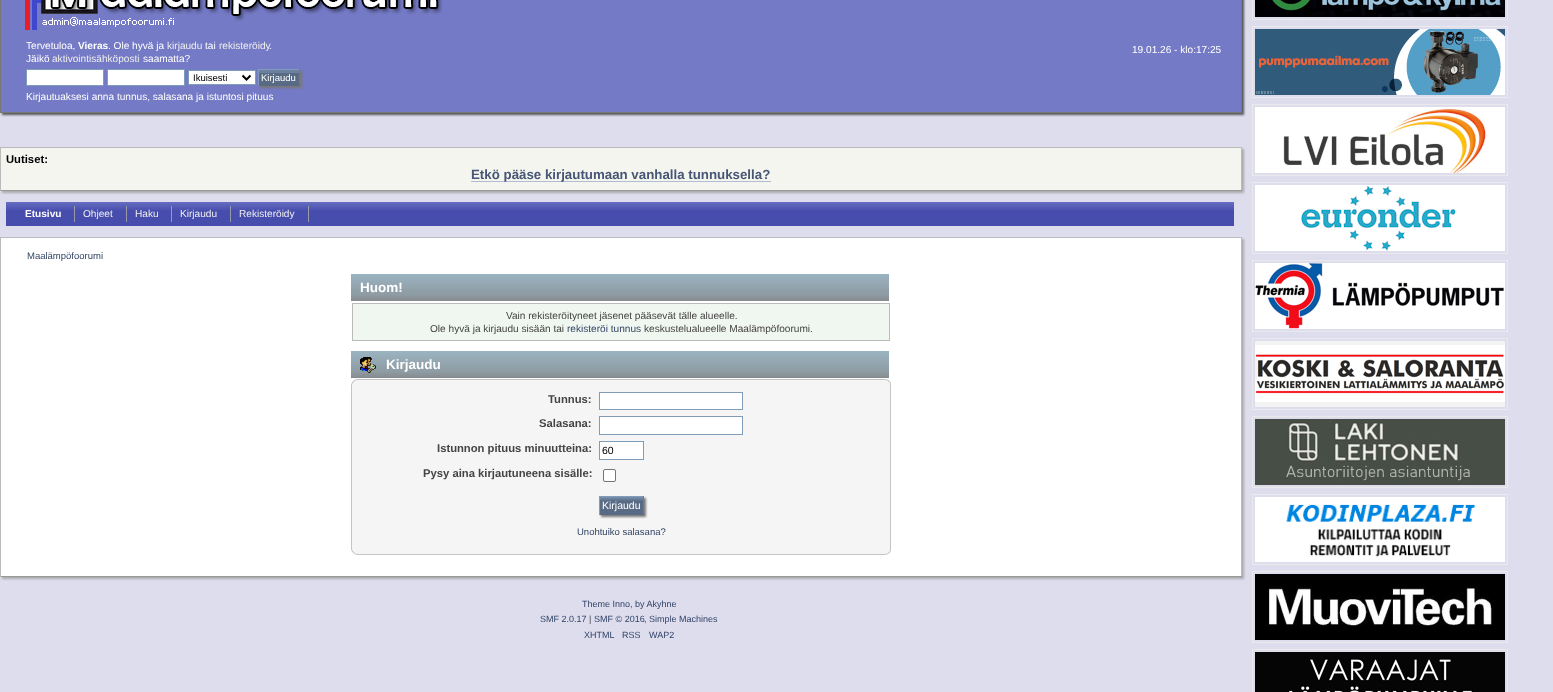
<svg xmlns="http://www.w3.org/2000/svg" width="1553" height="692">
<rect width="100%" height="100%" fill="#dde"/>
<rect x="2" y="-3" width="1242" height="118" fill="#555" filter="blur(1px)"/>
<rect x="0.5" y="-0.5" width="1241" height="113" fill="#747ac5" stroke="#777"/>
<image x="25" y="0" width="418" height="30" href="media/1.png"/>
<text x="26" y="49" style="font-family:Liberation Sans;font-size:10.1px;fill:#fff">Tervetuloa,</text>
<text x="78" y="49" style="font-family:Liberation Sans;font-size:10.1px;font-weight:bold;fill:#fff">Vieras</text>
<text x="108" y="49" style="font-family:Liberation Sans;font-size:10.1px;fill:#fff">. Ole hyvä ja</text>
<text x="167" y="49" style="font-family:Liberation Sans;font-size:10.1px;fill:#eee">kirjaudu</text>
<text x="205" y="49" style="font-family:Liberation Sans;font-size:10.1px;fill:#fff">tai</text>
<text x="219" y="49" style="font-family:Liberation Sans;font-size:10.1px;fill:#eee">rekisteröidy</text>
<text x="269" y="49" style="font-family:Liberation Sans;font-size:10.1px;fill:#fff">.</text>
<text x="26" y="62" style="font-family:Liberation Sans;font-size:10.1px;fill:#fff">Jäikö</text>
<text x="52" y="62" style="font-family:Liberation Sans;font-size:10.1px;fill:#eee">aktivointisähköposti</text>
<text x="143" y="62" style="font-family:Liberation Sans;font-size:10.1px;fill:#fff">saamatta?</text>
<rect x="26.5" y="69.5" width="77" height="16" fill="#fff" stroke="#7f9db9"/>
<rect x="107.5" y="69.5" width="77" height="16" fill="#fff" stroke="#7f9db9"/>
<rect x="188.5" y="70.5" width="67" height="14" fill="#fff" stroke="#7f9db9"/>
<path d="M242.5 75.5l4 4l4-4" fill="none" stroke="#000" stroke-width="2"/>
<text x="193" y="81" style="font-family:Liberation Sans;font-size:9.5px;fill:#000">Ikuisesti</text>
<rect x="260" y="71" width="42" height="17" fill="#787878" filter="blur(1px)"/>
<rect x="259" y="73" width="40" height="12" fill="#596b84"/>
<rect x="259" y="70" width="41" height="3" fill="#6c819f"/>
<rect x="258" y="69" width="42" height="1" fill="#7f9db9"/>
<rect x="299" y="69" width="1" height="17" fill="#697b94"/>
<rect x="258" y="85" width="42" height="1" fill="#596b84"/>
<rect x="258" y="69" width="1" height="17" fill="#7f9db9"/>
<text x="261" y="81" style="font-family:Liberation Sans;font-size:9.5px;fill:#fff">Kirjaudu</text>
<text x="26" y="100" style="font-family:Liberation Sans;font-size:10.1px;fill:#fff">Kirjautuaksesi anna tunnus, salasana ja istuntosi pituus</text>
<text x="1132" y="53" style="font-family:Liberation Sans;font-size:10.1px;fill:#fff">19.01.26 - klo:17:25</text>
<rect x="2" y="149" width="1242" height="44" fill="#aaa" filter="blur(1px)"/>
<rect x="1" y="148" width="1240" height="42" fill="#f5f5f0"/>
<rect y="147" width="1242" height="1" fill="#bbb"/>
<rect x="1241" y="147" width="1" height="44" fill="#bbb"/>
<rect y="190" width="1242" height="1" fill="#999"/>
<rect y="147" width="1" height="44" fill="#bbb"/>
<text x="6" y="163" style="font-family:Liberation Sans;font-size:11.25px;font-weight:bold;fill:#000">Uutiset:</text>
<rect x="471" y="181" width="300" height="1" fill="#b0bcd2"/>
<text x="471" y="179" style="font-family:Liberation Sans;font-size:13.3px;font-weight:bold;fill:#465674">Etkö pääse kirjautumaan vanhalla tunnuksella?</text>
<rect x="6" y="210" width="1228" height="16" fill="#464dac"/>
<image x="6" y="202" width="1228" height="8" href="media/2.png"/>
<rect x="74" y="206" width="1" height="16" fill="#99a"/>
<text x="25" y="217" style="font-family:Liberation Sans;font-size:10.1px;font-weight:bold;fill:#fff">Etusivu</text>
<rect x="126" y="206" width="1" height="16" fill="#99a"/>
<text x="83" y="217" style="font-family:Liberation Sans;font-size:10.1px;fill:#eee">Ohjeet</text>
<rect x="171" y="206" width="1" height="16" fill="#99a"/>
<text x="135" y="217" style="font-family:Liberation Sans;font-size:10.1px;fill:#eee">Haku</text>
<rect x="230" y="206" width="1" height="16" fill="#99a"/>
<text x="180" y="217" style="font-family:Liberation Sans;font-size:10.1px;fill:#eee">Kirjaudu</text>
<rect x="308" y="206" width="1" height="16" fill="#99a"/>
<text x="239" y="217" style="font-family:Liberation Sans;font-size:10.1px;fill:#eee">Rekisteröidy</text>
<rect x="2" y="239" width="1242" height="340" fill="#aaa" filter="blur(1px)"/>
<rect x="1" y="238" width="1240" height="338" fill="#fff"/>
<rect y="237" width="1242" height="1" fill="#bbb"/>
<rect x="1241" y="237" width="1" height="340" fill="#bbb"/>
<rect y="576" width="1242" height="1" fill="#999"/>
<rect y="237" width="1" height="340" fill="#bbb"/>
<text x="27" y="259" style="font-family:Liberation Sans;font-size:9.5px;fill:#346">Maalämpöfoorumi</text>
<image x="351" y="274" width="538" height="27" href="media/3.png"/>
<text x="360" y="292" style="font-family:Liberation Sans;font-size:13.5px;font-weight:bold;fill:#fff">Huom!</text>
<rect x="352.5" y="303.5" width="537" height="37" fill="#f0f6f0" stroke="#bbb"/>
<text x="506" y="319" style="font-family:Liberation Sans;font-size:10.1px;fill:#444">Vain rekisteröityneet jäsenet pääsevät tälle alueelle.</text>
<text x="430" y="332" style="font-family:Liberation Sans;font-size:10.1px;fill:#444">Ole hyvä ja kirjaudu sisään tai</text>
<text x="567" y="332" style="font-family:Liberation Sans;font-size:10.1px;fill:#346">rekisteröi tunnus</text>
<text x="644" y="332" style="font-family:Liberation Sans;font-size:10.1px;fill:#444">keskustelualueelle Maalämpöfoorumi.</text>
<image x="351" y="351" width="538" height="27" href="media/3.png"/>
<image x="360" y="357" width="16" height="16" href="media/4.png"/>
<text x="386" y="369" style="font-family:Liberation Sans;font-size:13.5px;font-weight:bold;fill:#fff">Kirjaudu</text>
<image x="351" y="379" width="534" height="11" href="media/5.png"/>
<image x="885" y="379" width="6" height="11" href="media/6.png"/>
<rect x="352" y="390" width="538" height="154" fill="#f5f5f5"/>
<rect x="890" y="390" width="1" height="154" fill="#c5c5c5"/>
<rect x="351" y="390" width="1" height="154" fill="#c5c5c5"/>
<text x="548" y="403" style="font-family:Liberation Sans;font-size:11.25px;font-weight:bold;fill:#444">Tunnus:</text>
<rect x="599.5" y="392.5" width="143" height="17" fill="#fff" stroke="#7f9db9"/>
<text x="539" y="427" style="font-family:Liberation Sans;font-size:11.25px;font-weight:bold;fill:#444">Salasana:</text>
<rect x="599.5" y="416.5" width="143" height="18" fill="#fff" stroke="#7f9db9"/>
<text x="437" y="452" style="font-family:Liberation Sans;font-size:11.25px;font-weight:bold;fill:#444">Istunnon pituus minuutteina:</text>
<rect x="599.5" y="441.5" width="44" height="18" fill="#fff" stroke="#7f9db9"/>
<text x="602" y="454" style="font-family:Liberation Sans;font-size:10.5px;fill:#000">60</text>
<text x="423" y="477" style="font-family:Liberation Sans;font-size:11.25px;font-weight:bold;fill:#444">Pysy aina kirjautuneena sisälle:</text>
<rect x="603.5" y="469.5" width="12" height="12" rx="1.5" fill="#fff" stroke="#767676"/>
<rect x="601" y="498" width="45" height="19" fill="#787878" filter="blur(1px)"/>
<rect x="600" y="501" width="43" height="13" fill="#596b84"/>
<image x="600" y="497" width="43" height="4" href="media/7.png"/>
<rect x="599" y="496" width="45" height="1" fill="#7f9db9"/>
<rect x="643" y="496" width="1" height="19" fill="#697b94"/>
<rect x="599" y="514" width="45" height="1" fill="#596b84"/>
<rect x="599" y="496" width="1" height="19" fill="#7f9db9"/>
<text x="602" y="509" style="font-family:Liberation Sans;font-size:10.5px;fill:#fff">Kirjaudu</text>
<text x="577" y="535" style="font-family:Liberation Sans;font-size:9.5px;fill:#346">Unohtuiko salasana?</text>
<image x="351" y="544" width="534" height="11" href="media/8.png"/>
<image x="885" y="544" width="6" height="11" href="media/9.png"/>
<text x="582" y="607" style="font-family:Liberation Sans;font-size:9px;fill:#346">Theme Inno, by Akyhne</text>
<text x="540" y="622" style="font-family:Liberation Sans;font-size:9px;fill:#346">SMF 2.0.17</text>
<text x="589" y="622" style="font-family:Liberation Sans;font-size:9px;fill:#444">|</text>
<text x="594" y="622" style="font-family:Liberation Sans;font-size:9px;fill:#346">SMF © 2016</text>
<text x="644" y="622" style="font-family:Liberation Sans;font-size:9px;fill:#444">,</text>
<text x="649" y="622" style="font-family:Liberation Sans;font-size:9px;fill:#346">Simple Machines</text>
<text x="584" y="638" style="font-family:Liberation Sans;font-size:9px;fill:#346">XHTML</text>
<text x="622" y="638" style="font-family:Liberation Sans;font-size:9px;fill:#346">RSS</text>
<text x="649" y="638" style="font-family:Liberation Sans;font-size:9px;fill:#346">WAP2</text>
<rect x="1252.5" y="-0.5" width="255" height="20" fill="none" stroke="#eaeaea"/>
<image x="1255" y="0" width="250" height="17" href="media/10.png"/>
<rect x="1252.5" y="26.5" width="255" height="71" fill="none" stroke="#eaeaea"/>
<image x="1255" y="29" width="250" height="66" href="media/11.png"/>
<rect x="1252.5" y="104.5" width="255" height="71" fill="none" stroke="#eaeaea"/>
<image x="1255" y="107" width="250" height="66" href="media/12.png"/>
<rect x="1252.5" y="182.5" width="255" height="71" fill="none" stroke="#eaeaea"/>
<image x="1255" y="185" width="250" height="66" href="media/13.png"/>
<rect x="1252.5" y="260.5" width="255" height="71" fill="none" stroke="#eaeaea"/>
<image x="1255" y="263" width="250" height="66" href="media/14.png"/>
<rect x="1252.5" y="338.5" width="255" height="71" fill="none" stroke="#eaeaea"/>
<image x="1255" y="341" width="250" height="66" href="media/15.png"/>
<rect x="1252.5" y="416.5" width="255" height="71" fill="none" stroke="#eaeaea"/>
<image x="1255" y="419" width="250" height="66" href="media/16.png"/>
<rect x="1252.5" y="494.5" width="255" height="70" fill="none" stroke="#eaeaea"/>
<image x="1255" y="497" width="250" height="65" href="media/17.png"/>
<rect x="1252.5" y="571.5" width="255" height="71" fill="none" stroke="#eaeaea"/>
<image x="1255" y="574" width="250" height="66" href="media/18.png"/>
<rect x="1252.5" y="649.5" width="255" height="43" fill="none" stroke="#eaeaea"/>
<image x="1255" y="652" width="250" height="40" href="media/19.png"/>
</svg>
